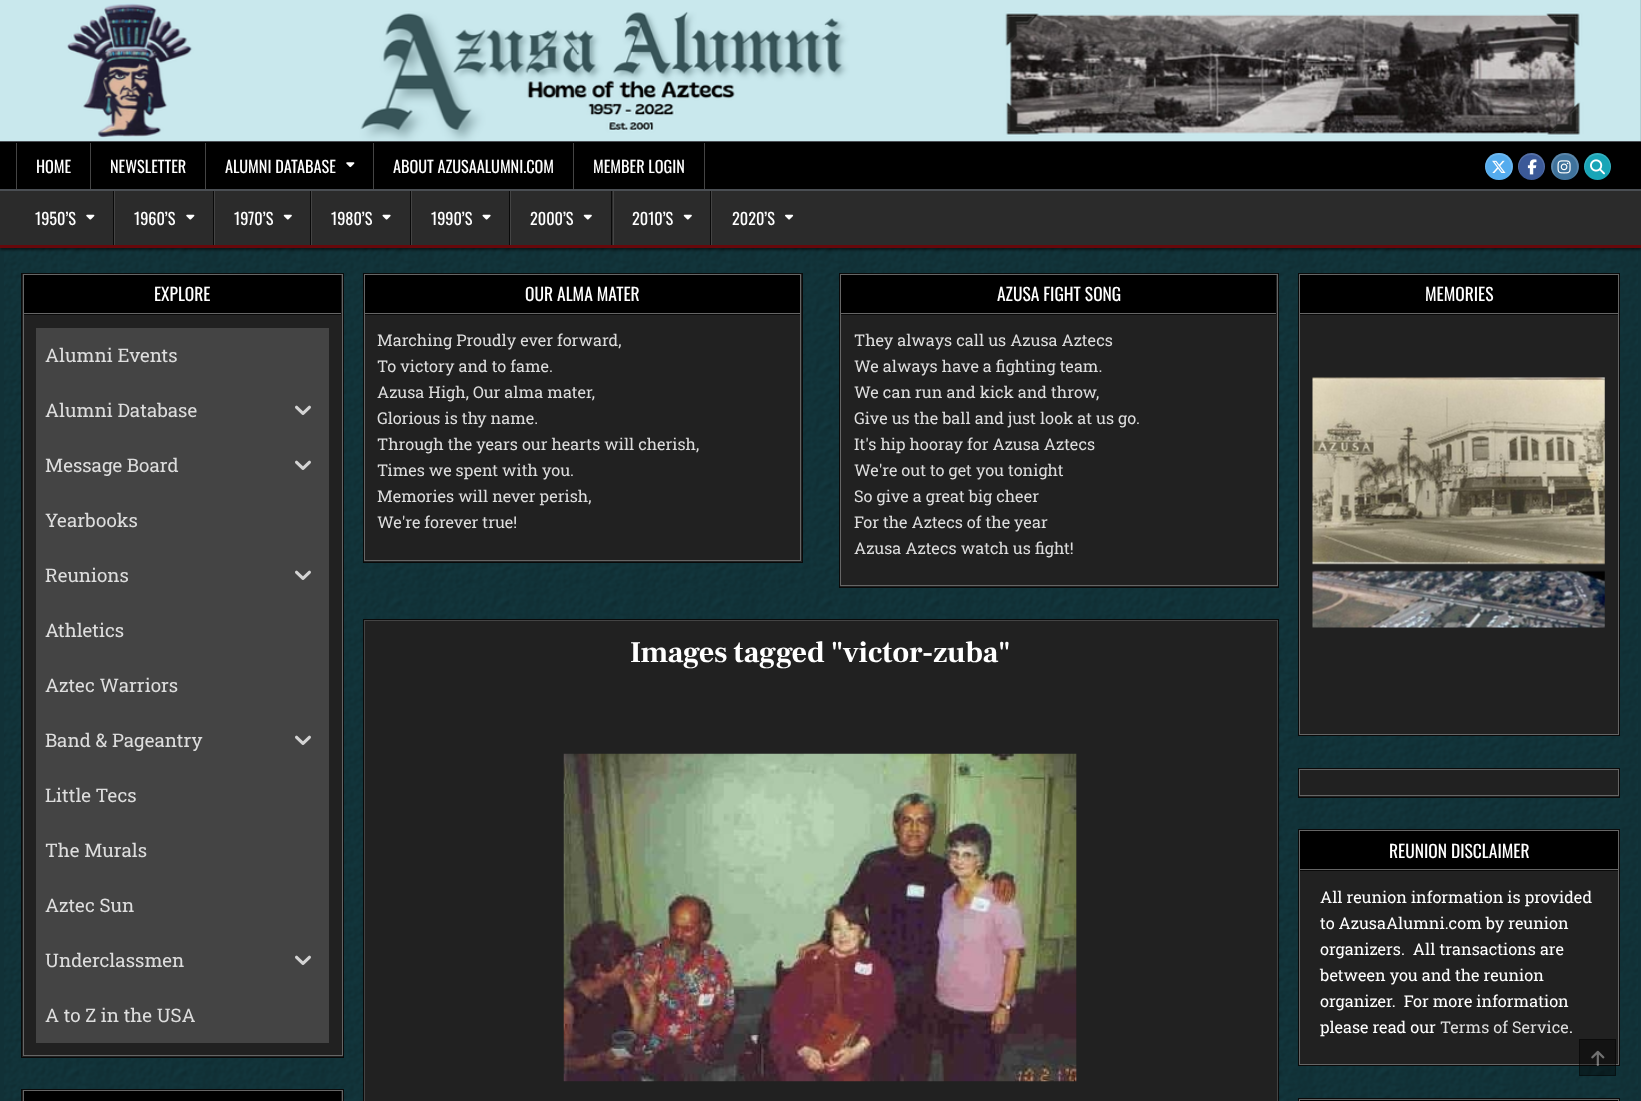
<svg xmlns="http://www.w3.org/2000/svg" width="1641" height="1101">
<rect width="100%" height="100%" fill="#113137"/>
<image x="4" y="248" width="1634" height="853" href="media/1.png"/>
<image x="0" y="0" width="1641" height="141" href="media/2.png"/>
<rect y="142" width="1641" height="47" fill="#000"/>
<rect y="141" width="1641" height="1" fill="#4a4e53"/>
<rect y="189" width="1641" height="1" fill="#4a4e53"/>
<rect x="90" y="143" width="1" height="46" fill="#444"/>
<rect x="16" y="143" width="1" height="46" fill="#444"/>
<text x="36" y="173" style="font-family:Oswald;font-size:16.25px;fill:#fff">HOME</text>
<rect x="205" y="143" width="1" height="46" fill="#444"/>
<text x="110" y="173" style="font-family:Oswald;font-size:16.25px;fill:#fff">NEWSLETTER</text>
<rect x="373" y="143" width="1" height="46" fill="#444"/>
<text x="225" y="173" style="font-family:Oswald;font-size:16.25px;fill:#fff">ALUMNI DATABASE</text>
<image x="346" y="162" width="9" height="6" href="media/3.png"/>
<rect x="573" y="143" width="1" height="46" fill="#444"/>
<text x="393" y="173" style="font-family:Oswald;font-size:16.25px;fill:#fff">ABOUT AZUSAALUMNI.COM</text>
<rect x="704" y="143" width="1" height="46" fill="#444"/>
<text x="593" y="173" style="font-family:Oswald;font-size:16.25px;fill:#fff">MEMBER LOGIN</text>
<rect x="1485" y="153" width="28" height="27" rx="13.5" fill="#55acee"/>
<path d="M1498.5 153c-17 0-18.5 25.5 0 27c3 0 6-.5 8.5-2.5c11-7 5.5-24.5-7.5-24.5zm.5 2c16 0 16 25 0 25c-17 0-17-25 0-25z" fill="#ffffff24" fill-rule="evenodd"/>
<image x="1492" y="160" width="14" height="13" href="media/4.png"/>
<circle cx="1531.5" cy="166.5" r="13.5" fill="#3b5998"/>
<path d="M1531 155c17 0 17 24.5 .5 25c4.5 0 8.5-2 11-6c2-3 3-6.5 2-10c-3-16-25.5-14-26.5 2.5c0 3.5 1.5 7 4 9.5c-6-7-3-21 9-21z" fill="#ffffff24"/>
<image x="1527" y="159" width="10" height="16" href="media/5.png"/>
<rect x="1551" y="153" width="28" height="27" rx="13.5" fill="#3f729b"/>
<path d="M1564.5 153c-13 0-18.5 17.5-7.5 24.5c2.5 2 5.5 2.5 8.5 2.5c18.5-1.5 17-27 0-27zm.5 2c16 0 16 25 0 25c-16 0-16-25 0-25z" fill="#ffffff24" fill-rule="evenodd"/>
<image x="1557" y="160" width="14" height="14" href="media/6.png"/>
<circle cx="1597.5" cy="166.5" r="13.5" fill="#18a5b7"/>
<path d="M1598 155c12 0 15 14 9 21c2.5-2.5 4-6 4-9.5c-1-16.5-23.5-18.5-26.5-2.5c-1 3.5 0 7 2 10c2.5 4 6.5 6 11 6c-16.5-.5-16.5-25 .5-25z" fill="#ffffff24"/>
<image x="1590" y="159" width="15" height="16" href="media/7.png"/>
<rect y="193" width="1641" height="57" fill="#00000080" filter="blur(1px)"/>
<rect y="191" width="1641" height="54" fill="#2b2b2b"/>
<rect y="190" width="1641" height="1" fill="#4a4e53"/>
<rect y="245" width="1641" height="3" fill="#67080b"/>
<rect x="113" y="191" width="1" height="54" fill="#090909"/>
<text x="35" y="225" style="font-family:Oswald;font-size:16.25px;fill:#fff">1950’S</text>
<image x="86" y="214" width="9" height="6" href="media/8.png"/>
<rect x="213" y="191" width="1" height="54" fill="#090909"/>
<rect x="114" y="191" width="1" height="54" fill="#444"/>
<text x="134" y="225" style="font-family:Oswald;font-size:16.25px;fill:#fff">1960’S</text>
<image x="186" y="214" width="9" height="6" href="media/8.png"/>
<rect x="310" y="191" width="1" height="54" fill="#090909"/>
<rect x="214" y="191" width="1" height="54" fill="#444"/>
<text x="234" y="225" style="font-family:Oswald;font-size:16.25px;fill:#fff">1970’S</text>
<image x="283" y="214" width="9" height="6" href="media/9.png"/>
<rect x="410" y="191" width="1" height="54" fill="#090909"/>
<rect x="311" y="191" width="1" height="54" fill="#444"/>
<text x="331" y="225" style="font-family:Oswald;font-size:16.25px;fill:#fff">1980’S</text>
<image x="382" y="214" width="9" height="6" href="media/10.png"/>
<rect x="509" y="191" width="1" height="54" fill="#090909"/>
<rect x="411" y="191" width="1" height="54" fill="#444"/>
<text x="431" y="225" style="font-family:Oswald;font-size:16.25px;fill:#fff">1990’S</text>
<image x="482" y="214" width="9" height="6" href="media/10.png"/>
<rect x="611" y="191" width="1" height="54" fill="#090909"/>
<rect x="510" y="191" width="1" height="54" fill="#444"/>
<text x="530" y="225" style="font-family:Oswald;font-size:16.25px;fill:#fff">2000’S</text>
<image x="583" y="214" width="9" height="6" href="media/9.png"/>
<rect x="710" y="191" width="1" height="54" fill="#090909"/>
<rect x="613" y="191" width="1" height="54" fill="#444"/>
<text x="632" y="225" style="font-family:Oswald;font-size:16.25px;fill:#fff">2010’S</text>
<image x="683" y="214" width="9" height="6" href="media/9.png"/>
<rect x="711" y="191" width="1" height="54" fill="#444"/>
<text x="732" y="225" style="font-family:Oswald;font-size:16.25px;fill:#fff">2020’S</text>
<image x="785" y="214" width="9" height="6" href="media/11.png"/>
<rect x="21.5" y="273.5" width="322" height="784" fill="#212121" stroke="#090909"/>
<rect x="23.5" y="274.5" width="319" height="781" fill="none" stroke="#666"/>
<rect x="24" y="275" width="317" height="38" fill="#000"/>
<rect x="24" y="314" width="317" height="1" fill="#090909"/>
<rect x="24" y="313" width="317" height="1" fill="#666"/>
<text x="154" y="301" style="font-family:Oswald;font-size:17.5px;fill:#fff">EXPLORE</text>
<rect x="36" y="328" width="293" height="715" fill="#444"/>
<text x="45" y="362" style="font-family:Roboto Slab;font-size:18.75px;fill:#ddd">Alumni Events</text>
<text x="45" y="417" style="font-family:Roboto Slab;font-size:18.75px;fill:#ddd">Alumni Database</text>
<image x="295" y="405" width="16" height="10" href="media/12.png"/>
<text x="45" y="472" style="font-family:Roboto Slab;font-size:18.75px;fill:#ddd">Message Board</text>
<image x="295" y="460" width="16" height="10" href="media/12.png"/>
<text x="45" y="527" style="font-family:Roboto Slab;font-size:18.75px;fill:#ddd">Yearbooks</text>
<text x="45" y="582" style="font-family:Roboto Slab;font-size:18.75px;fill:#ddd">Reunions</text>
<image x="295" y="570" width="16" height="10" href="media/12.png"/>
<text x="45" y="637" style="font-family:Roboto Slab;font-size:18.75px;fill:#ddd">Athletics</text>
<text x="45" y="692" style="font-family:Roboto Slab;font-size:18.75px;fill:#ddd">Aztec Warriors</text>
<text x="45" y="747" style="font-family:Roboto Slab;font-size:18.75px;fill:#ddd">Band &amp; Pageantry</text>
<image x="295" y="735" width="16" height="10" href="media/12.png"/>
<text x="45" y="802" style="font-family:Roboto Slab;font-size:18.75px;fill:#ddd">Little Tecs</text>
<text x="45" y="857" style="font-family:Roboto Slab;font-size:18.75px;fill:#ddd">The Murals</text>
<text x="45" y="912" style="font-family:Roboto Slab;font-size:18.75px;fill:#ddd">Aztec Sun</text>
<text x="45" y="967" style="font-family:Roboto Slab;font-size:18.75px;fill:#ddd">Underclassmen</text>
<image x="295" y="955" width="16" height="10" href="media/12.png"/>
<text x="45" y="1022" style="font-family:Roboto Slab;font-size:18.75px;fill:#ddd">A to Z in the USA</text>
<rect x="22" y="1090" width="320" height="11" fill="#212121"/>
<rect x="21.5" y="1089.5" width="322" height="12" fill="none" stroke="#090909"/>
<rect x="23.5" y="1090.5" width="319" height="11" fill="none" stroke="#666"/>
<rect x="24" y="1091" width="317" height="10" fill="#000"/>
<rect x="363.5" y="273.5" width="439" height="289" fill="#212121" stroke="#090909"/>
<rect x="364.5" y="274.5" width="436" height="286" fill="none" stroke="#666"/>
<rect x="365" y="275" width="435" height="38" fill="#000"/>
<rect x="365" y="314" width="435" height="1" fill="#090909"/>
<rect x="365" y="313" width="435" height="1" fill="#666"/>
<text x="525" y="301" style="font-family:Oswald;font-size:17.5px;fill:#fff">OUR ALMA MATER</text>
<text x="377" y="346" style="font-family:Roboto Slab;font-size:16.25px;fill:#ddd">Marching Proudly ever forward,</text>
<text x="377" y="372" style="font-family:Roboto Slab;font-size:16.25px;fill:#ddd">To victory and to fame.</text>
<text x="377" y="398" style="font-family:Roboto Slab;font-size:16.25px;fill:#ddd">Azusa High, Our alma mater,</text>
<text x="377" y="424" style="font-family:Roboto Slab;font-size:16.25px;fill:#ddd">Glorious is thy name.</text>
<text x="377" y="450" style="font-family:Roboto Slab;font-size:16.25px;fill:#ddd">Through the years our hearts will cherish,</text>
<text x="377" y="476" style="font-family:Roboto Slab;font-size:16.25px;fill:#ddd">Times we spent with you.</text>
<text x="377" y="502" style="font-family:Roboto Slab;font-size:16.25px;fill:#ddd">Memories will never perish,</text>
<text x="377" y="528" style="font-family:Roboto Slab;font-size:16.25px;fill:#ddd">We're forever true!</text>
<rect x="840" y="275" width="438" height="312" fill="#212121"/>
<rect x="839.5" y="273.5" width="439" height="314" fill="none" stroke="#090909"/>
<rect x="840.5" y="274.5" width="437" height="311" fill="none" stroke="#666"/>
<rect x="841" y="275" width="435" height="38" fill="#000"/>
<rect x="841" y="314" width="435" height="1" fill="#090909"/>
<rect x="841" y="313" width="435" height="1" fill="#666"/>
<text x="997" y="301" style="font-family:Oswald;font-size:17.5px;fill:#fff">AZUSA FIGHT SONG</text>
<text x="854" y="346" style="font-family:Roboto Slab;font-size:16.25px;fill:#ddd">They always call us Azusa Aztecs</text>
<text x="854" y="372" style="font-family:Roboto Slab;font-size:16.25px;fill:#ddd">We always have a fighting team.</text>
<text x="854" y="398" style="font-family:Roboto Slab;font-size:16.25px;fill:#ddd">We can run and kick and throw,</text>
<text x="854" y="424" style="font-family:Roboto Slab;font-size:16.25px;fill:#ddd">Give us the ball and just look at us go.</text>
<text x="854" y="450" style="font-family:Roboto Slab;font-size:16.25px;fill:#ddd">It's hip hooray for Azusa Aztecs</text>
<text x="854" y="476" style="font-family:Roboto Slab;font-size:16.25px;fill:#ddd">We're out to get you tonight</text>
<text x="854" y="502" style="font-family:Roboto Slab;font-size:16.25px;fill:#ddd">So give a great big cheer</text>
<text x="854" y="528" style="font-family:Roboto Slab;font-size:16.25px;fill:#ddd">For the Aztecs of the year</text>
<text x="854" y="554" style="font-family:Roboto Slab;font-size:16.25px;fill:#ddd">Azusa Aztecs watch us fight!</text>
<rect x="365" y="621" width="912" height="480" fill="#212121"/>
<rect x="363.5" y="619.5" width="915" height="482" fill="none" stroke="#090909"/>
<rect x="364.5" y="620.5" width="913" height="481" fill="none" stroke="#444"/>
<text x="630" y="662" style="font-family:Frank Ruhl Libre;font-size:30px;font-weight:bold;letter-spacing:-0.25px;fill:#fff">Images tagged "victor-zuba"</text>
<image x="563" y="753" width="514" height="329" href="media/13.png"/>
<rect x="1300" y="315" width="318" height="419" fill="#212121"/>
<rect x="1298.5" y="273.5" width="321" height="462" fill="none" stroke="#090909"/>
<rect x="1299.5" y="274.5" width="319" height="460" fill="none" stroke="#666"/>
<rect x="1300" y="275" width="318" height="38" fill="#000"/>
<rect x="1300" y="314" width="318" height="1" fill="#090909"/>
<rect x="1300" y="313" width="318" height="1" fill="#666"/>
<text x="1425" y="301" style="font-family:Oswald;font-size:17.5px;fill:#fff">MEMORIES</text>
<image x="1312" y="377" width="293" height="188" href="media/14.png"/>
<image x="1312" y="570" width="293" height="58" href="media/15.png"/>
<rect x="1299" y="770" width="320" height="27" fill="#212121"/>
<rect x="1298.5" y="768.5" width="321" height="29" fill="none" stroke="#090909"/>
<rect x="1299.5" y="769.5" width="319" height="26" fill="none" stroke="#666"/>
<rect x="1300" y="871" width="318" height="193" fill="#212121"/>
<rect x="1298.5" y="829.5" width="321" height="236" fill="none" stroke="#090909"/>
<rect x="1299.5" y="830.5" width="319" height="234" fill="none" stroke="#666"/>
<rect x="1300" y="831" width="318" height="38" fill="#000"/>
<rect x="1300" y="870" width="318" height="1" fill="#090909"/>
<rect x="1300" y="869" width="318" height="1" fill="#666"/>
<text x="1389" y="858" style="font-family:Oswald;font-size:17.5px;fill:#fff">REUNION DISCLAIMER</text>
<text x="1320" y="903" style="font-family:Roboto Slab;font-size:16.25px;fill:#fff">All reunion information is provided</text>
<text x="1320" y="929" style="font-family:Roboto Slab;font-size:16.25px;fill:#fff">to AzusaAlumni.com by reunion</text>
<text x="1320" y="955" style="font-family:Roboto Slab;font-size:16.25px;fill:#fff" xml:space="preserve">organizers.  All transactions are</text>
<text x="1320" y="981" style="font-family:Roboto Slab;font-size:16.25px;fill:#fff">between you and the reunion</text>
<text x="1320" y="1007" style="font-family:Roboto Slab;font-size:16.25px;fill:#fff" xml:space="preserve">organizer.  For more information</text>
<text x="1320" y="1033" style="font-family:Roboto Slab;font-size:16.25px;fill:#fff">please read our</text>
<text x="1440" y="1033" style="font-family:Roboto Slab;font-size:16.25px;fill:#ddd">Terms of Service</text>
<text x="1569" y="1033" style="font-family:Roboto Slab;font-size:16.25px;fill:#fff">.</text>
<rect x="1298.5" y="1098.5" width="321" height="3" fill="none" stroke="#090909"/>
<rect x="1299.5" y="1099.5" width="319" height="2" fill="none" stroke="#666"/>
<rect x="1300" y="1100" width="318" height="1" fill="#000"/>
<rect x="1579" y="1039" width="37" height="37" fill="#00000066"/>
<rect x="1579.5" y="1039.5" width="36" height="36" fill="none" stroke="#00000066"/>
<image x="1591" y="1050" width="14" height="16" href="media/16.png"/>
</svg>
